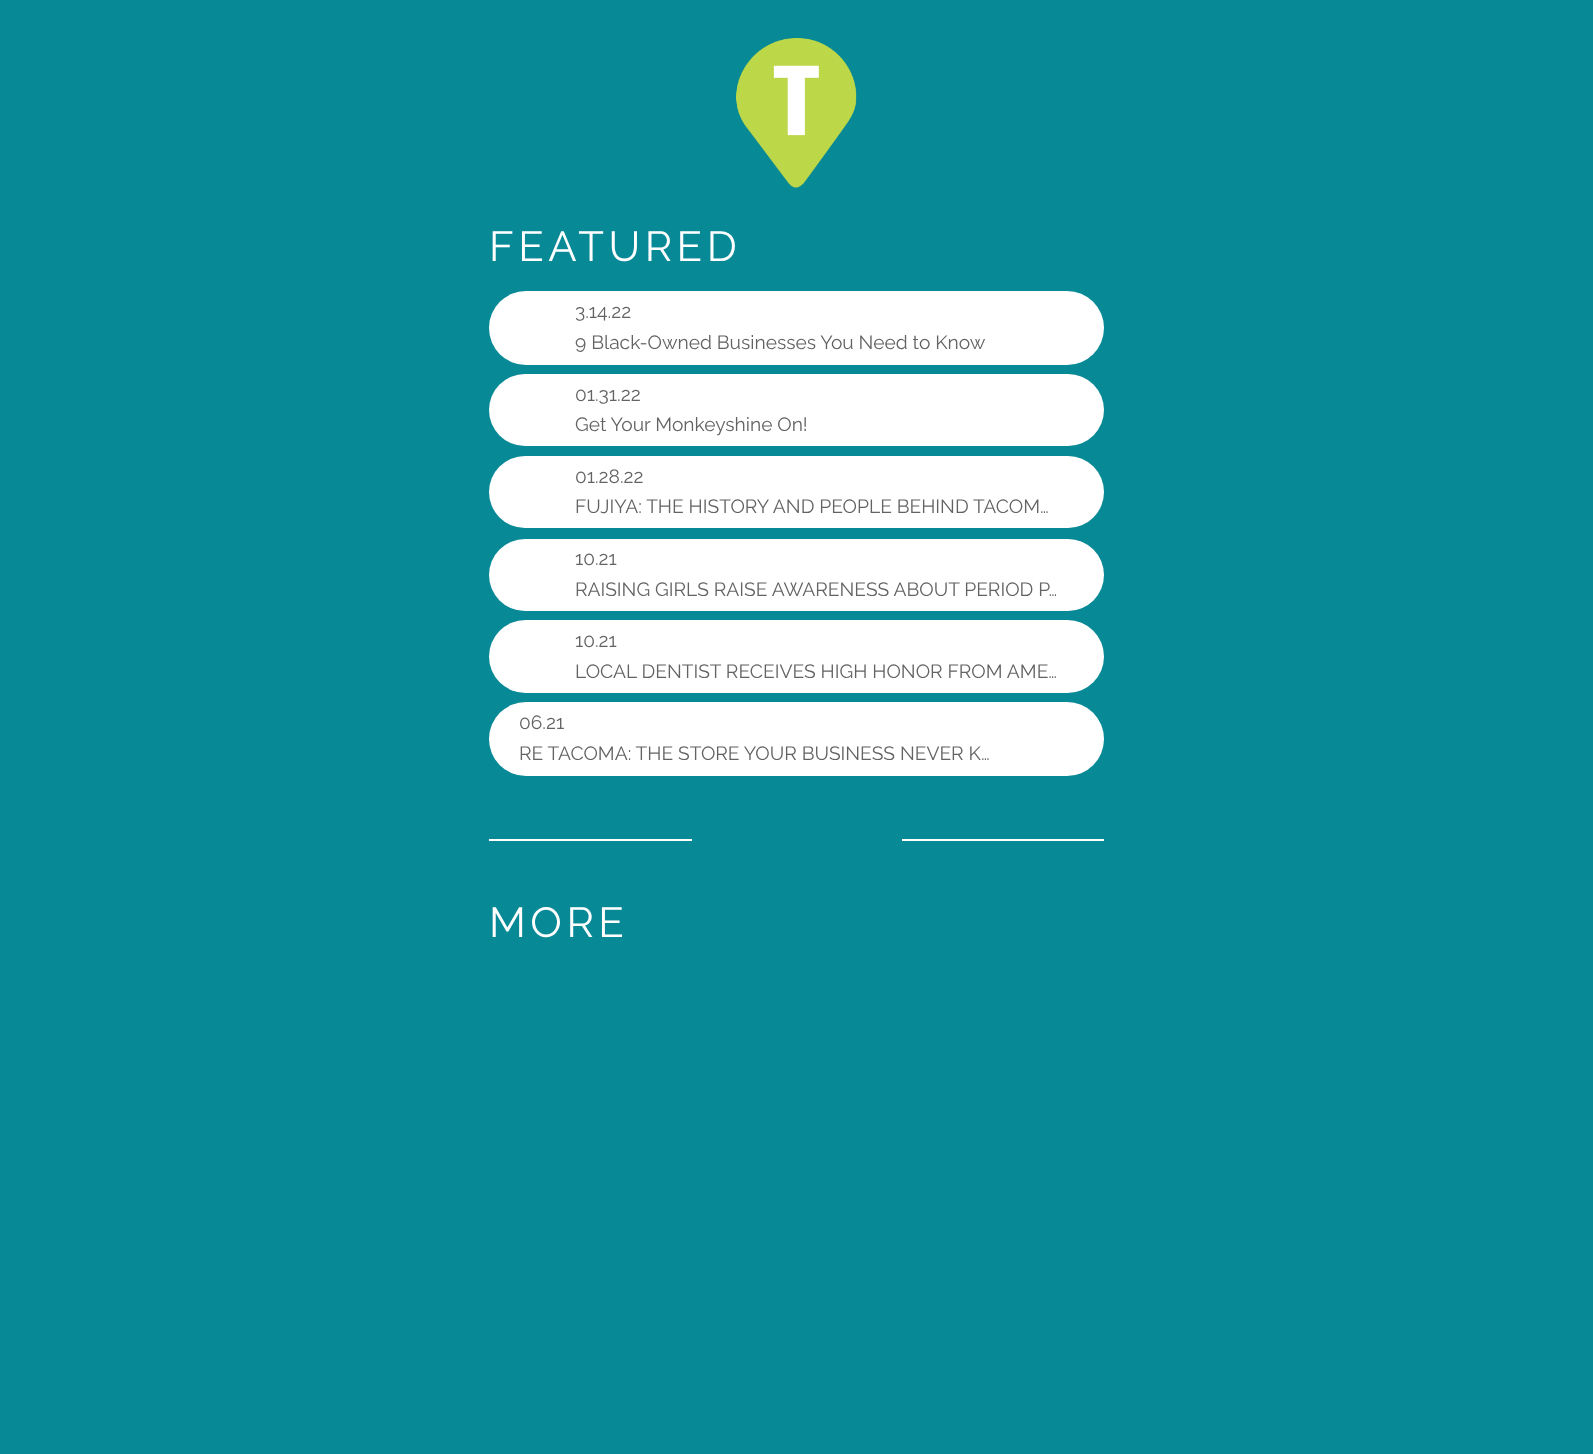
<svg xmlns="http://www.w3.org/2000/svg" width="1593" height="1454">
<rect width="100%" height="100%" fill="#088996"/>
<image x="736" y="38" width="121" height="150" href="media/1.png"/>
<text x="489" y="261" style="font-family:Raleway;font-size:42px;letter-spacing:4.5px;fill:#fff">FEATURED</text>
<rect x="489" y="291" width="615" height="74" rx="37" fill="#fff"/>
<text x="575" y="318" style="font-family:Raleway;font-size:19.2px;fill:#636363">3.14.22</text>
<text x="575" y="349" style="font-family:Raleway;font-size:19.2px;fill:#636363">9 Black-Owned Businesses You Need to Know</text>
<rect x="489" y="374" width="615" height="72" rx="36" fill="#fff"/>
<text x="575" y="401" style="font-family:Raleway;font-size:19.2px;fill:#636363">01.31.22</text>
<text x="575" y="431" style="font-family:Raleway;font-size:19.2px;fill:#636363">Get Your Monkeyshine On!</text>
<rect x="489" y="456" width="615" height="72" rx="36" fill="#fff"/>
<text x="575" y="483" style="font-family:Raleway;font-size:19.2px;fill:#636363">01.28.22</text>
<text x="575" y="513" style="font-family:Raleway;font-size:19.2px;fill:#636363">FUJIYA: THE HISTORY AND PEOPLE BEHIND TACOM…</text>
<rect x="489" y="539" width="615" height="72" rx="36" fill="#fff"/>
<text x="575" y="565" style="font-family:Raleway;font-size:19.2px;fill:#636363">10.21</text>
<text x="575" y="596" style="font-family:Raleway;font-size:19.2px;fill:#636363">RAISING GIRLS RAISE AWARENESS ABOUT PERIOD P…</text>
<rect x="489" y="620" width="615" height="73" rx="36.5" fill="#fff"/>
<text x="575" y="647" style="font-family:Raleway;font-size:19.2px;fill:#636363">10.21</text>
<text x="575" y="678" style="font-family:Raleway;font-size:19.2px;fill:#636363">LOCAL DENTIST RECEIVES HIGH HONOR FROM AME…</text>
<rect x="489" y="702" width="615" height="74" rx="37" fill="#fff"/>
<text x="519" y="729" style="font-family:Raleway;font-size:19.2px;fill:#636363">06.21</text>
<text x="519" y="760" style="font-family:Raleway;font-size:19.2px;fill:#636363">RE TACOMA: THE STORE YOUR BUSINESS NEVER K…</text>
<rect x="489" y="839" width="615" height="2" fill="#fff"/>
<rect x="692" y="839" width="210" height="2" fill="#088996"/>
<text x="489" y="937" style="font-family:Raleway;font-size:42px;letter-spacing:4.5px;fill:#fff">MORE</text>
</svg>
